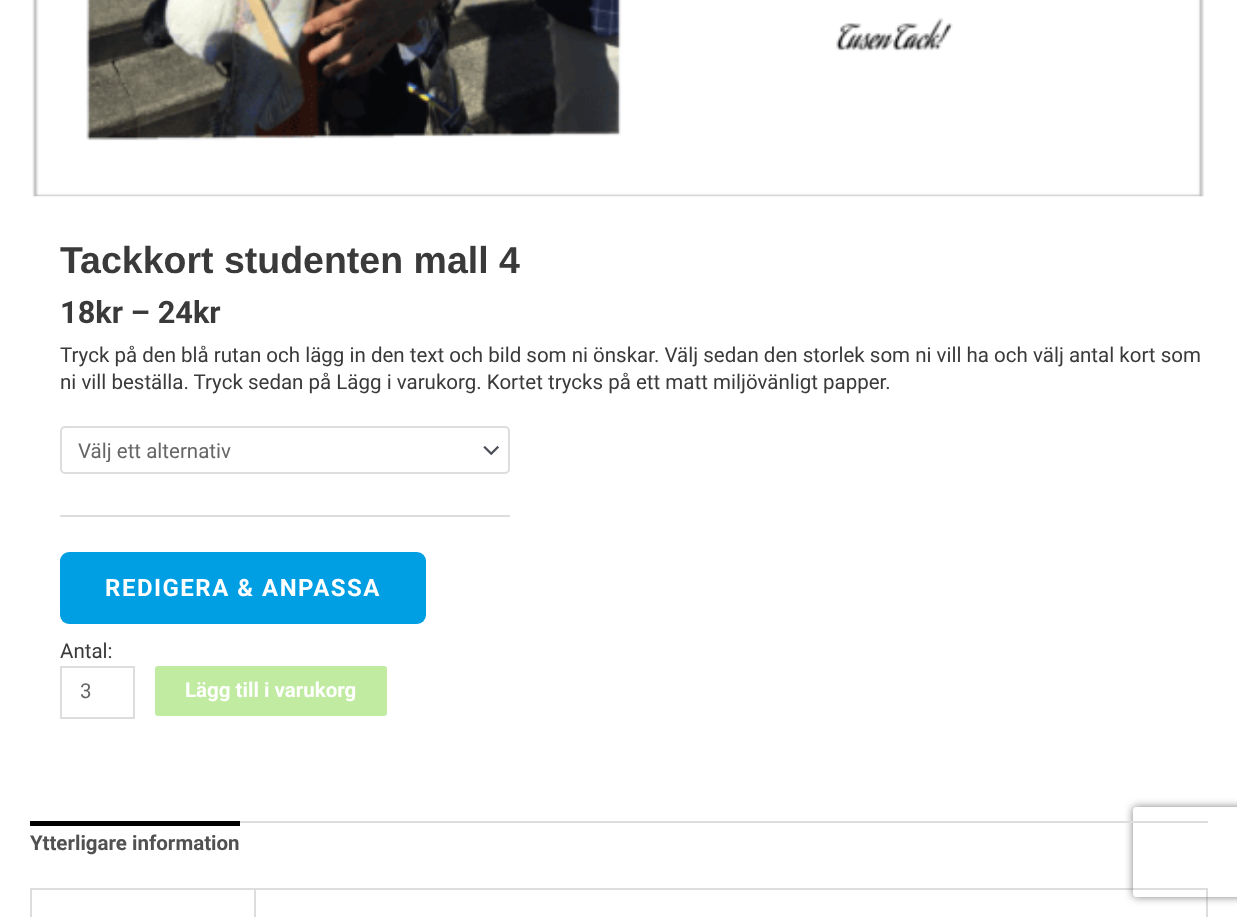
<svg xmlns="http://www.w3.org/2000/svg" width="1237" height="917">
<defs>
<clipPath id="clip1"><rect x="78" y="438" width="390" height="24"/></clipPath>
<clipPath id="clip2"><path d="M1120 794h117v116h-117zm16 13h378c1.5 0 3 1.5 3 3v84c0 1.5-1.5 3-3 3h-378c-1.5 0-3-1.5-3-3v-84c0-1.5 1.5-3 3-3z" clip-rule="evenodd"/></clipPath>
</defs>
<rect width="100%" height="100%" fill="#fff"/>
<image x="32" y="0" width="1172" height="197" href="media/1.png"/>
<text x="60" y="273" style="font-family:Liberation Sans;font-size:37.5px;font-weight:bold;fill:#3a3a3a">Tackkort studenten mall 4</text>
<text x="60" y="323" style="font-family:Roboto;font-size:30.75px;font-weight:bold;fill:#3a3a3a">18kr – 24kr</text>
<text x="60" y="362" style="font-family:Roboto;font-size:20.52px;fill:#3a3a3a">Tryck på den blå rutan och lägg in den text och bild som ni önskar. Välj sedan den storlek som ni vill ha och välj antal kort som</text>
<text x="60" y="389" style="font-family:Roboto;font-size:20.52px;fill:#3a3a3a">ni vill beställa. Tryck sedan på Lägg i varukorg. Kortet trycks på ett matt miljövänligt papper.</text>
<rect x="60" y="515" width="450" height="2" fill="#ddd"/>
<image x="483" y="446" width="16" height="10" href="media/2.png"/>
<rect x="61" y="427" width="448" height="46" rx="4" fill="none" stroke="#ddd" stroke-width="2"/>
<g clip-path="url(#clip1)">
<text x="78" y="458" style="font-family:Roboto;font-size:20.52px;fill:#666">Välj ett alternativ</text>
</g>
<rect x="60" y="552" width="366" height="72" rx="9" fill="#009fe3"/>
<text x="105" y="596" style="font-family:Roboto;font-size:24px;font-weight:bold;letter-spacing:1.5px;fill:#fff">REDIGERA &amp; ANPASSA</text>
<text x="60" y="658" style="font-family:Roboto;font-size:20.52px;fill:#3a3a3a">Antal:</text>
<rect x="61" y="667" width="73" height="51" fill="none" stroke="#ddd" stroke-width="2"/>
<text x="80" y="698" style="font-family:Roboto;font-size:20.52px;fill:#666">3</text>
<rect x="155" y="666" width="232" height="50" rx="3" fill="#c0eba1"/>
<text x="185" y="697" style="font-family:Roboto;font-size:20.52px;font-weight:bold;fill:#fff">Lägg till i varukorg</text>
<rect x="30" y="888" width="1178" height="2" fill="#ddd"/>
<rect x="1206" y="890" width="2" height="27" fill="#ddd"/>
<g clip-path="url(#clip2)">
<rect x="1133" y="807" width="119" height="90" rx="3" fill="#808080" filter="blur(4px)"/>
</g>
<rect x="240" y="821" width="968" height="2" fill="#ddd"/>
<rect x="30" y="821" width="210" height="5" fill="#000"/>
<text x="30" y="850" style="font-family:Roboto;font-size:20.52px;font-weight:bold;fill:#515151">Ytterligare information</text>
<rect x="254" y="890" width="2" height="27" fill="#ddd"/>
<rect x="30" y="890" width="2" height="27" fill="#ddd"/>
</svg>
